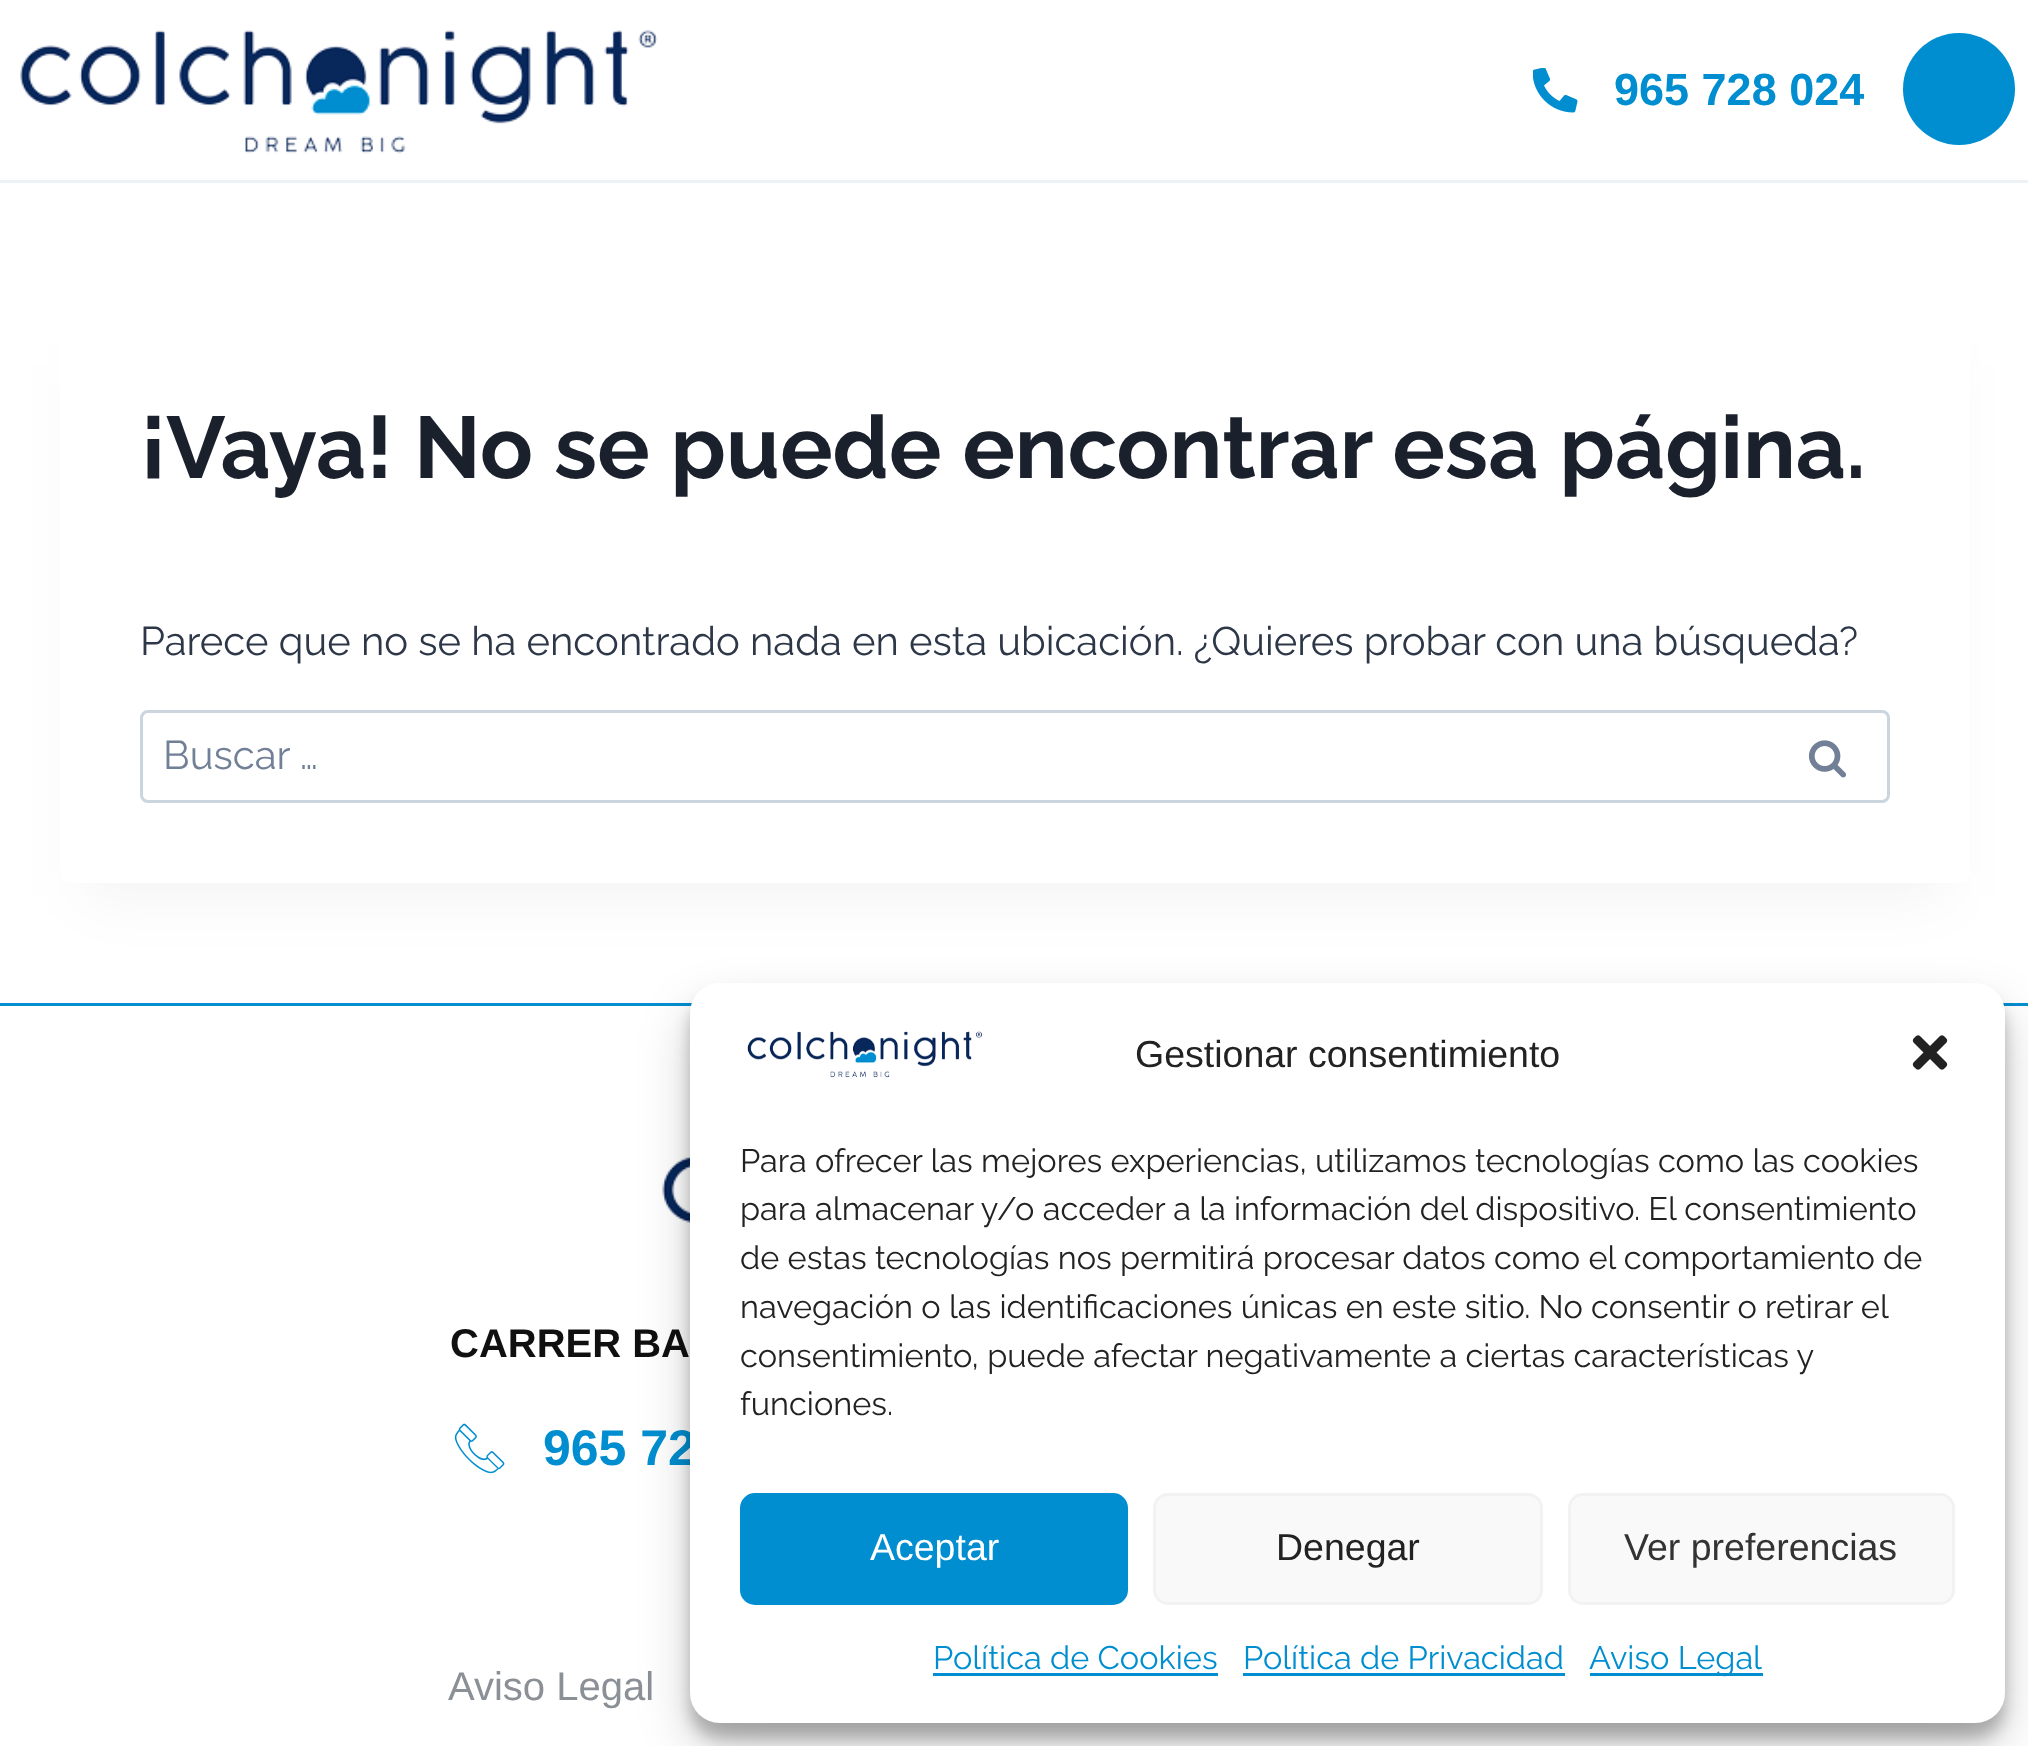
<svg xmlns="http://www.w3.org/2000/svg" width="2028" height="1746">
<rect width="100%" height="100%" fill="#fff"/>
<rect y="180" width="2028" height="3" fill="#edf2f7"/>
<image x="20" y="30" width="638" height="124" href="media/1.png"/>
<image x="1533" y="68" width="45" height="45" href="media/2.png"/>
<text x="1614" y="105" style="font-family:Liberation Sans;font-size:45px;font-weight:bold;fill:#008ed0">965 728 024</text>
<circle cx="1959" cy="89" r="56" fill="#008ed0"/>
<rect x="85" y="365" width="1860" height="530" fill="#0000000d" filter="blur(31px)"/>
<rect x="60" y="303" width="1910" height="580" rx="10" fill="#fff"/>
<text x="140" y="478" style="font-family:Raleway;font-size:87.5px;font-weight:bold;fill:#1a202c">¡Vaya! No se puede encontrar esa página.</text>
<text x="140" y="655" style="font-family:Raleway;font-size:40px;fill:#2d3748">Parece que no se ha encontrado nada en esta ubicación. ¿Quieres probar con una búsqueda?</text>
<rect x="141.5" y="711.5" width="1747" height="90" rx="6.5" fill="none" stroke="#cbd5e0" stroke-width="3"/>
<text x="163" y="769" style="font-family:Raleway;font-size:40px;fill:#718096">Buscar …</text>
<image x="1808" y="740" width="38" height="38" href="media/3.png"/>
<rect y="1003" width="2028" height="3" fill="#008ed0"/>
<image x="662" y="1155" width="28" height="68" href="media/4.png"/>
<text x="450" y="1357" style="font-family:Liberation Sans;font-size:40px;font-weight:bold;fill:#101010">CARRER BA</text>
<image x="454" y="1423" width="51" height="51" href="media/5.png"/>
<text x="543" y="1465" style="font-family:Liberation Sans;font-size:50px;font-weight:bold;fill:#008ed0">965 72</text>
<text x="448" y="1700" style="font-family:Liberation Sans;font-size:40px;fill:#8b8f96">Aviso Legal</text>
<rect x="690" y="998" width="1315" height="740" rx="30" fill="#0000003b" filter="blur(7.5px)"/>
<rect x="690" y="1008" width="1315" height="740" rx="30" fill="#00000030" filter="blur(25px)"/>
<rect x="690" y="983" width="1315" height="740" rx="30" fill="#fff"/>
<image x="747" y="1031" width="236" height="47" href="media/6.png"/>
<text x="1135" y="1067" style="font-family:Liberation Sans;font-size:37.5px;fill:#222">Gestionar consentimiento</text>
<image x="1912" y="1035" width="36" height="35" href="media/7.png"/>
<text x="740" y="1172" style="font-family:Raleway;font-size:32.5px;fill:#222">Para ofrecer las mejores experiencias, utilizamos tecnologías como las cookies</text>
<text x="740" y="1220" style="font-family:Raleway;font-size:32.5px;fill:#222">para almacenar y/o acceder a la información del dispositivo. El consentimiento</text>
<text x="740" y="1269" style="font-family:Raleway;font-size:32.5px;fill:#222">de estas tecnologías nos permitirá procesar datos como el comportamiento de</text>
<text x="740" y="1318" style="font-family:Raleway;font-size:32.5px;fill:#222">navegación o las identificaciones únicas en este sitio. No consentir o retirar el</text>
<text x="740" y="1367" style="font-family:Raleway;font-size:32.5px;fill:#222">consentimiento, puede afectar negativamente a ciertas características y</text>
<text x="740" y="1415" style="font-family:Raleway;font-size:32.5px;fill:#222">funciones.</text>
<rect x="741.5" y="1494.5" width="385" height="109" rx="13.5" fill="#008ed0" stroke="#008ed0" stroke-width="3"/>
<text x="870" y="1560" style="font-family:Liberation Sans;font-size:37.5px;fill:#fff">Aceptar</text>
<rect x="1154.5" y="1494.5" width="387" height="109" rx="13.5" fill="#f9f9f9" stroke="#f2f2f2" stroke-width="3"/>
<text x="1276" y="1560" style="font-family:Liberation Sans;font-size:37.5px;fill:#222">Denegar</text>
<rect x="1569.5" y="1494.5" width="384" height="109" rx="13.5" fill="#f9f9f9" stroke="#f2f2f2" stroke-width="3"/>
<text x="1624" y="1560" style="font-family:Liberation Sans;font-size:37.5px;fill:#333">Ver preferencias</text>
<text x="933" y="1669" style="font-family:Raleway;font-size:32.5px;fill:#008ed0">Política de Cookies</text>
<rect x="933" y="1673" width="285" height="3" fill="#008ed0"/>
<text x="1243" y="1669" style="font-family:Raleway;font-size:32.5px;fill:#008ed0">Política de Privacidad</text>
<rect x="1243" y="1673" width="322" height="3" fill="#008ed0"/>
<rect x="1590" y="1673" width="173" height="3" fill="#008ed0"/>
<text x="1589" y="1669" style="font-family:Raleway;font-size:32.5px;fill:#008ed0">Aviso Legal</text>
</svg>
